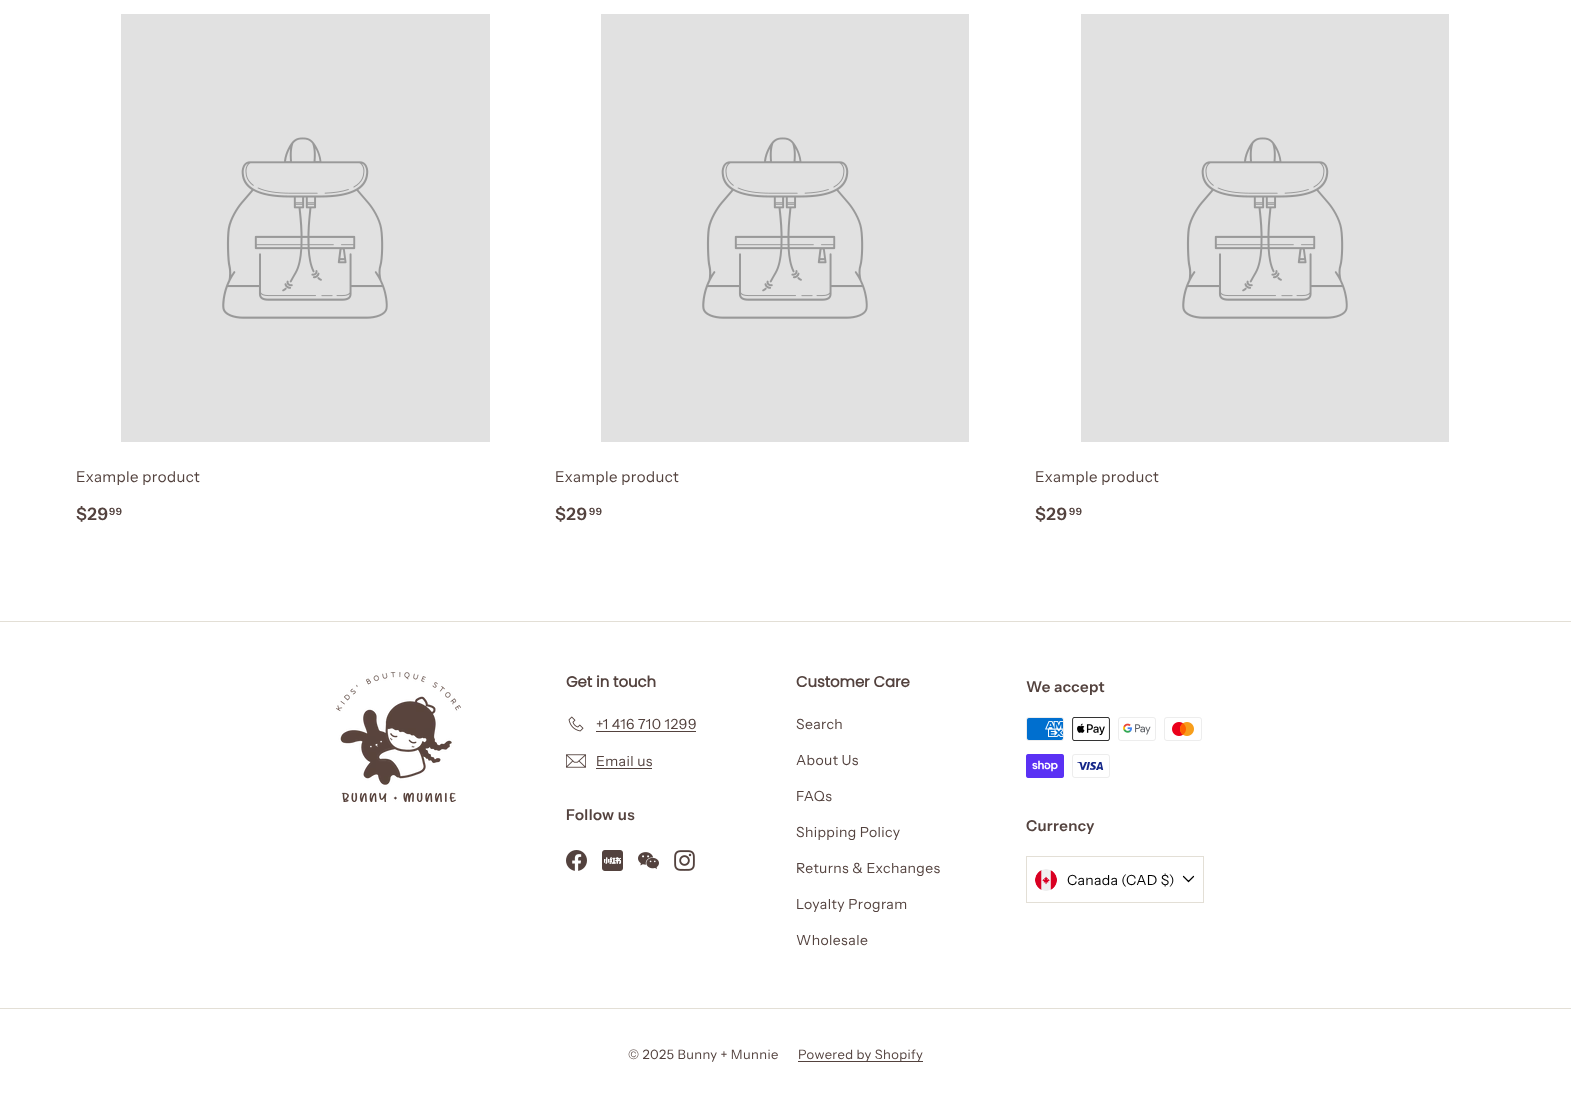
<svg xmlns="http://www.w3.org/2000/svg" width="1571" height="1099">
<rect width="100%" height="100%" fill="#fff"/>
<rect x="121" y="14" width="369" height="428" fill="#e1e1e1"/>
<image x="222" y="137" width="166" height="182" href="media/1.png"/>
<text x="76" y="482" style="font-family:Instrument Sans;font-size:15px;letter-spacing:0.4px;fill:#53423e">Example product</text>
<text x="76" y="520" style="font-family:Instrument Sans;font-size:17px;font-weight:600;letter-spacing:0.4px;fill:#53423e">$29</text>
<text x="109" y="515" style="font-family:Instrument Sans;font-size:10px;font-weight:600;letter-spacing:0.4px;fill:#53423e">99</text>
<rect x="601" y="14" width="368" height="428" fill="#e1e1e1"/>
<image x="702" y="137" width="166" height="182" href="media/1.png"/>
<text x="555" y="482" style="font-family:Instrument Sans;font-size:15px;letter-spacing:0.4px;fill:#53423e">Example product</text>
<text x="555" y="520" style="font-family:Instrument Sans;font-size:17px;font-weight:600;letter-spacing:0.4px;fill:#53423e">$29</text>
<text x="589" y="515" style="font-family:Instrument Sans;font-size:10px;font-weight:600;letter-spacing:0.4px;fill:#53423e">99</text>
<rect x="1081" y="14" width="368" height="428" fill="#e1e1e1"/>
<image x="1182" y="137" width="166" height="182" href="media/1.png"/>
<text x="1035" y="482" style="font-family:Instrument Sans;font-size:15px;letter-spacing:0.4px;fill:#53423e">Example product</text>
<text x="1035" y="520" style="font-family:Instrument Sans;font-size:17px;font-weight:600;letter-spacing:0.4px;fill:#53423e">$29</text>
<text x="1069" y="515" style="font-family:Instrument Sans;font-size:10px;font-weight:600;letter-spacing:0.4px;fill:#53423e">99</text>
<rect y="621" width="1571" height="1" fill="#e3dfd6"/>
<image x="336" y="672" width="125" height="130" href="media/2.png"/>
<text x="566" y="687" style="font-family:Poppins;font-size:15px;font-weight:bold;letter-spacing:-0.1px;fill:#53423e">Get in touch</text>
<image x="568" y="716" width="16" height="16" href="media/3.png"/>
<text x="596" y="729" style="font-family:Instrument Sans;font-size:14px;letter-spacing:0.4px;fill:#53423e">+1 416 710 1299</text>
<rect x="596" y="731" width="100" height="1" fill="#53423e"/>
<image x="566" y="754" width="20" height="14" href="media/4.png"/>
<text x="596" y="766" style="font-family:Instrument Sans;font-size:14px;letter-spacing:0.4px;fill:#53423e">Email us</text>
<rect x="596" y="768" width="56" height="1" fill="#53423e"/>
<text x="566" y="820" style="font-family:Instrument Sans;font-size:15px;font-weight:600;letter-spacing:0.4px;fill:#53423e">Follow us</text>
<image x="566" y="850" width="21" height="21" href="media/5.png"/>
<image x="602" y="850" width="21" height="21" href="media/6.png"/>
<image x="638" y="852" width="21" height="17" href="media/7.png"/>
<image x="674" y="850" width="21" height="21" href="media/8.png"/>
<text x="796" y="687" style="font-family:Poppins;font-size:15px;font-weight:bold;letter-spacing:-0.1px;fill:#53423e">Customer Care</text>
<text x="796" y="729" style="font-family:Instrument Sans;font-size:14px;letter-spacing:0.4px;fill:#53423e">Search</text>
<text x="796" y="765" style="font-family:Instrument Sans;font-size:14px;letter-spacing:0.4px;fill:#53423e">About Us</text>
<text x="796" y="801" style="font-family:Instrument Sans;font-size:14px;letter-spacing:0.4px;fill:#53423e">FAQs</text>
<text x="796" y="837" style="font-family:Instrument Sans;font-size:14px;letter-spacing:0.4px;fill:#53423e">Shipping Policy</text>
<text x="796" y="873" style="font-family:Instrument Sans;font-size:14px;letter-spacing:0.4px;fill:#53423e">Returns &amp; Exchanges</text>
<text x="796" y="909" style="font-family:Instrument Sans;font-size:14px;letter-spacing:0.4px;fill:#53423e">Loyalty Program</text>
<text x="796" y="945" style="font-family:Instrument Sans;font-size:14px;letter-spacing:0.4px;fill:#53423e">Wholesale</text>
<text x="1026" y="692" style="font-family:Instrument Sans;font-size:15px;font-weight:600;letter-spacing:0.4px;fill:#53423e">We accept</text>
<image x="1026" y="717" width="38" height="24" href="media/9.png"/>
<image x="1072" y="717" width="38" height="24" href="media/10.png"/>
<image x="1118" y="717" width="38" height="24" href="media/11.png"/>
<image x="1164" y="717" width="38" height="24" href="media/12.png"/>
<image x="1026" y="754" width="38" height="24" href="media/13.png"/>
<image x="1072" y="754" width="38" height="24" href="media/14.png"/>
<text x="1026" y="831" style="font-family:Instrument Sans;font-size:15px;font-weight:600;letter-spacing:0.4px;fill:#53423e">Currency</text>
<rect x="1026.5" y="856.5" width="177" height="46" fill="none" stroke="#e3dfd6"/>
<image x="1035" y="869" width="22" height="22" href="media/15.png"/>
<text x="1067" y="885" style="font-family:Instrument Sans;font-size:14px;letter-spacing:0.3px;fill:#000">Canada (CAD $)</text>
<path d="M1183.5 876.5l5 5l5-5" fill="none" stroke="#000" stroke-width="1.2" stroke-linecap="round" stroke-linejoin="round"/>
<rect y="1008" width="1571" height="1" fill="#e3dfd6"/>
<text x="628" y="1059" style="font-family:Instrument Sans;font-size:13px;letter-spacing:0.4px;fill:#53423e">© 2025 Bunny + Munnie</text>
<rect x="798" y="1061" width="125" height="1" fill="#53423e"/>
<text x="798" y="1059" style="font-family:Instrument Sans;font-size:13px;letter-spacing:0.4px;fill:#53423e">Powered by Shopify</text>
</svg>
